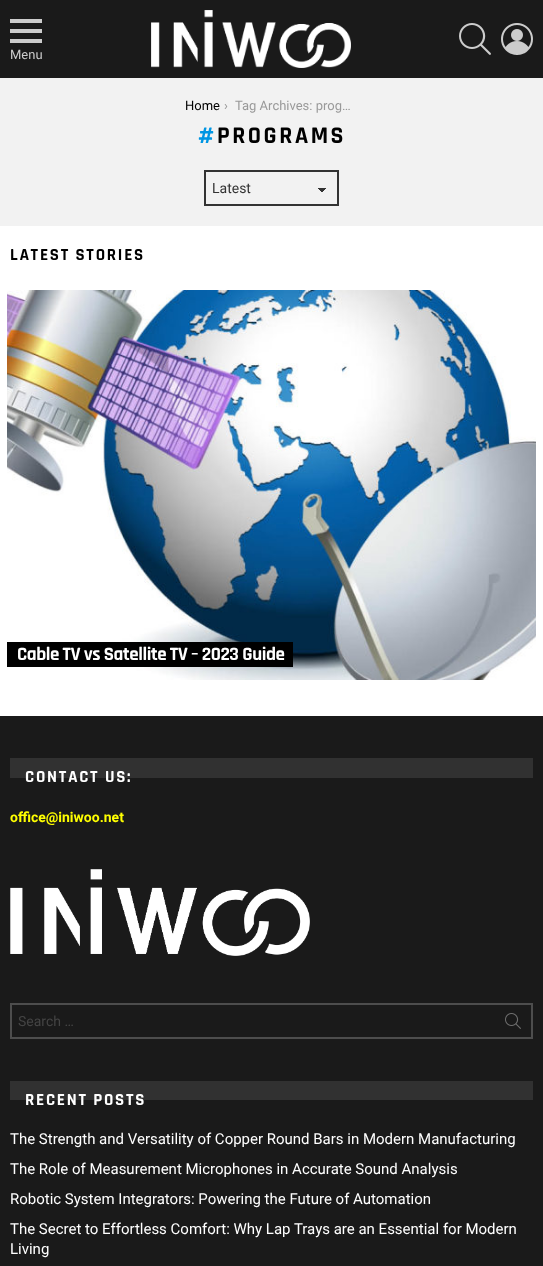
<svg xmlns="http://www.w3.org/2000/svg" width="543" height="1266">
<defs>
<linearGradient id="g1" gradientUnits="userSpaceOnUse" x1="322" y1="188" x2="327" y2="192"><stop offset="0.5" stop-color="#333"/><stop offset="0.5" stop-color="#f2f2f2"/></linearGradient>
<linearGradient id="g2" gradientUnits="userSpaceOnUse" x1="317" y1="192" x2="322" y2="188"><stop offset="0.5" stop-color="#f2f2f2"/><stop offset="0.5" stop-color="#333"/></linearGradient>
</defs>
<rect width="100%" height="100%" fill="#fff"/>
<rect width="543" height="78" fill="#1a1a1a"/>
<image x="10" y="19" width="32" height="24" href="media/1.png"/>
<text x="10" y="59" style="font-family:Roboto;font-size:13px;fill:#ccc">Menu</text>
<image x="151" y="10" width="200" height="58" href="media/2.png"/>
<image x="459" y="23" width="32" height="32" href="media/3.png"/>
<image x="501" y="23" width="32" height="32" href="media/4.png"/>
<rect y="78" width="543" height="148" fill="#f2f2f2"/>
<text x="185" y="110" style="font-family:Roboto;font-size:13px;fill:#000">Home</text>
<text x="224" y="110" style="font-family:Roboto;font-size:13px;fill:#999">›</text>
<text x="235" y="110" style="font-family:Roboto;font-size:13px;fill:#999">Tag Archives: prog…</text>
<text x="198" y="143" style="font-family:Rajdhani;font-size:24px;font-weight:bold;letter-spacing:2.5px;fill:#0096e3">#</text>
<text x="217" y="143" style="font-family:Rajdhani;font-size:24px;font-weight:bold;letter-spacing:2.5px;fill:#000">PROGRAMS</text>
<rect x="322" y="188" width="5" height="4" fill="url(#g1)"/>
<rect x="317" y="188" width="5" height="4" fill="url(#g2)"/>
<rect x="205" y="171" width="133" height="34" fill="none" stroke="#333" stroke-width="2"/>
<text x="212" y="193" style="font-family:Roboto;font-size:14px;fill:#333">Latest</text>
<text x="10" y="260" style="font-family:Rajdhani;font-size:17px;font-weight:bold;letter-spacing:1.75px;fill:#000">LATEST STORIES</text>
<image x="7" y="290" width="529" height="390" href="media/5.png"/>
<rect x="17" y="642" width="276" height="25" fill="#000"/>
<text x="17" y="660" style="font-family:Rajdhani;font-size:19px;font-weight:bold;letter-spacing:-0.45px;fill:#fff">Cable TV vs Satellite TV – 2023 Guide</text>
<rect x="7" y="642" width="10" height="25" fill="#000"/>
<rect y="716" width="543" height="550" fill="#1a1a1a"/>
<rect x="10" y="758" width="523" height="20" fill="#313131"/>
<text x="25" y="782" style="font-family:Rajdhani;font-size:17px;font-weight:bold;letter-spacing:1.75px;fill:#fff">CONTACT US:</text>
<text x="10" y="822" style="font-family:Roboto;font-size:14px;font-weight:bold;fill:#ff0">office@iniwoo.net</text>
<image x="10" y="869" width="300" height="87" href="media/6.png"/>
<rect x="11" y="1004" width="521" height="34" fill="none" stroke="#4d4d4d" stroke-width="2"/>
<text x="18" y="1026" style="font-family:Roboto;font-size:14px;fill:#444">Search …</text>
<image x="505" y="1013" width="16" height="16" href="media/7.png"/>
<rect x="10" y="1081" width="523" height="19" fill="#313131"/>
<text x="25" y="1105" style="font-family:Rajdhani;font-size:17px;font-weight:bold;letter-spacing:1.75px;fill:#fff">RECENT POSTS</text>
<text x="10" y="1144" style="font-family:Roboto;font-size:15px;fill:#fff">The Strength and Versatility of Copper Round Bars in Modern Manufacturing</text>
<text x="10" y="1174" style="font-family:Roboto;font-size:15px;fill:#fff">The Role of Measurement Microphones in Accurate Sound Analysis</text>
<text x="10" y="1204" style="font-family:Roboto;font-size:15px;fill:#fff">Robotic System Integrators: Powering the Future of Automation</text>
<text x="10" y="1234" style="font-family:Roboto;font-size:15px;fill:#fff">The Secret to Effortless Comfort: Why Lap Trays are an Essential for Modern</text>
<text x="10" y="1254" style="font-family:Roboto;font-size:15px;fill:#fff">Living</text>
</svg>
